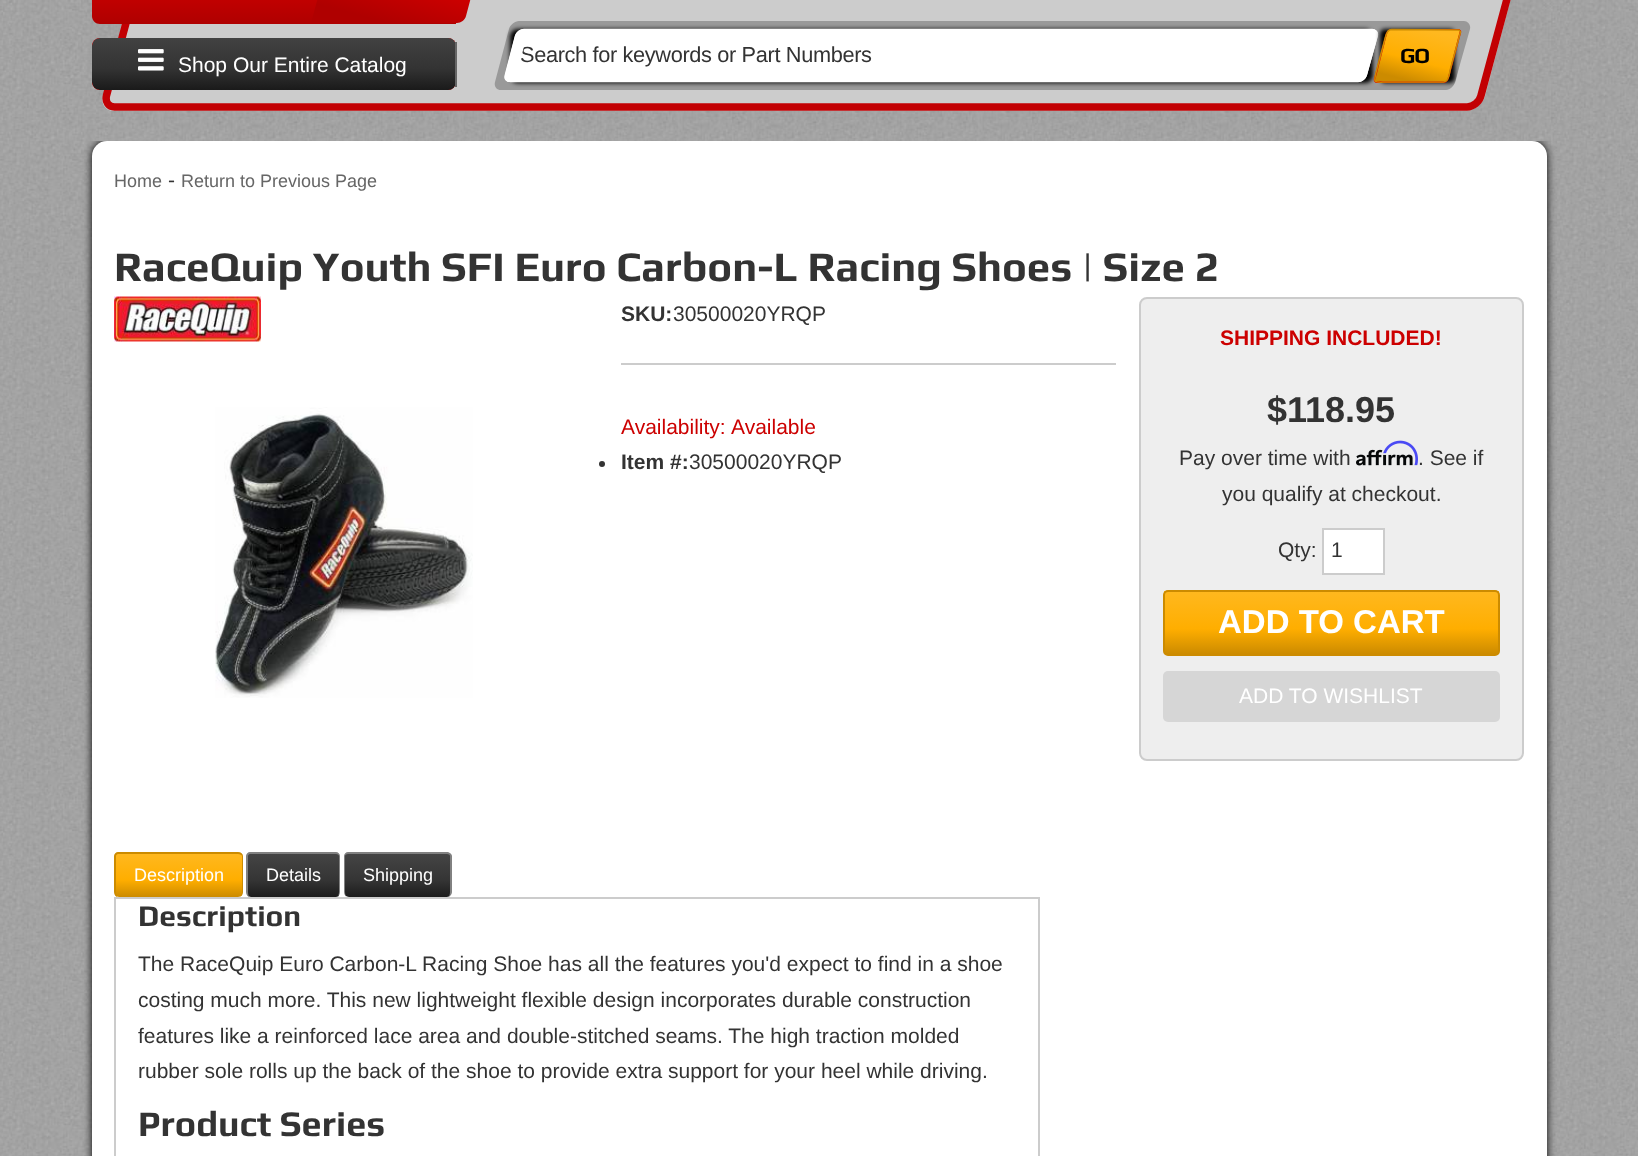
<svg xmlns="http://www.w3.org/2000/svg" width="1638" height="1156">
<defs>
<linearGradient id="g1" gradientUnits="userSpaceOnUse" x1="274" y1="-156" x2="274" y2="24"><stop offset="0" stop-color="#ff0202"/><stop offset="0.6" stop-color="#e20000"/><stop offset="1" stop-color="#af0000"/></linearGradient>
<linearGradient id="g2" gradientUnits="userSpaceOnUse" x1="436" y1="-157" x2="388" y2="23"><stop offset="0" stop-color="#ff0202"/><stop offset="0.6" stop-color="#e20000"/><stop offset="1" stop-color="#af0000"/></linearGradient>
<clipPath id="clip1"><rect x="92" y="38" width="364" height="52" rx="8"/></clipPath>
<linearGradient id="g3" gradientUnits="userSpaceOnUse" x1="273" y1="37" x2="273" y2="90"><stop offset="0" stop-color="#424242"/><stop offset="0.6" stop-color="#333"/><stop offset="1" stop-color="#1a1a1a"/></linearGradient>
<clipPath id="clip2"><path d="M525.5 40.5h839l-8 29.5h-838.5z"/></clipPath>
<clipPath id="clip3"><path d="M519 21h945c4.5 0 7 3.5 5.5 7.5l-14 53.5c-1.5 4-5.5 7.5-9.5 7.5h-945.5c-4 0-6.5-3.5-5.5-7.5l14.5-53.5c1-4 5-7.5 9.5-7.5z"/></clipPath>
<linearGradient id="g4" gradientUnits="userSpaceOnUse" x1="1424" y1="30" x2="1411" y2="81"><stop offset="0" stop-color="#ffb81f"/><stop offset="0.6" stop-color="#ffae00"/><stop offset="1" stop-color="#cc8b00"/></linearGradient>
<clipPath id="clip4"><rect x="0" y="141" width="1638" height="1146"/></clipPath>
<linearGradient id="g5" gradientUnits="userSpaceOnUse" x1="1331" y1="591" x2="1331" y2="654"><stop offset="0" stop-color="#ffb81f"/><stop offset="0.6" stop-color="#ffae00"/><stop offset="1" stop-color="#cc8b00"/></linearGradient>
<clipPath id="clip5"><rect x="114" y="852" width="129" height="45" rx="5"/></clipPath>
<linearGradient id="g6" gradientUnits="userSpaceOnUse" x1="179" y1="854" x2="179" y2="897"><stop offset="0" stop-color="#ffb81f"/><stop offset="0.6" stop-color="#ffae00"/><stop offset="1" stop-color="#cc8b00"/></linearGradient>
<clipPath id="clip6"><rect x="246" y="852" width="95" height="45" rx="5"/></clipPath>
<linearGradient id="g7" gradientUnits="userSpaceOnUse" x1="293" y1="854" x2="293" y2="897"><stop offset="0" stop-color="#444"/><stop offset="0.6" stop-color="#353535"/><stop offset="1" stop-color="#1c1c1c"/></linearGradient>
<clipPath id="clip7"><rect x="344" y="852" width="108" height="45" rx="5"/></clipPath>
<linearGradient id="g8" gradientUnits="userSpaceOnUse" x1="398" y1="854" x2="398" y2="897"><stop offset="0" stop-color="#444"/><stop offset="0.6" stop-color="#353535"/><stop offset="1" stop-color="#1c1c1c"/></linearGradient>
</defs>
<rect width="100%" height="100%" fill="#fff"/>
<image x="0" y="0" width="1638" height="1156" href="media/1.png"/>
<path d="M172-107h1352c9 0 13 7 11 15l-50 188c-2 8-11 15-19 15h-1352c-9 0-13-7-11-15l50-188c2-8 11-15 19-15z" fill="#ccc"/>
<path d="M171-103.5h1352.5c6 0 9.5 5 8 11.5l-50.5 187.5c-1.5 6.5-8 11.5-14 11.5h-1352.5c-6 0-9.5-5-8-11.5l50.5-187.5c1.5-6.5 8-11.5 14-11.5z" fill="none" stroke="#c20003" stroke-width="7.5"/>
<path d="M92-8h364v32h-356c-4.5 0-8-3.5-8-8z" fill="url(#g1)"/>
<path d="M360-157h145c4 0 6 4 5 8l-44 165c-1 4-5 7-9 7h-146z" fill="url(#g2)"/>
<rect x="92" y="38" width="364" height="52" rx="8" fill="#e20000"/>
<g clip-path="url(#clip1)">
<path d="M100 38h355v52h-355c-4.5 0-8-3.5-8-8v-36c0-4.5 3.5-8 8-8z" fill="url(#g3)"/>
</g>
<rect x="455" y="42" width="2" height="45" fill="#666"/>
<image x="138" y="49" width="26" height="22" href="media/2.png"/>
<text x="178" y="72" style="font-family:Liberation Sans;font-size:21px;fill:#fff">Shop Our Entire Catalog</text>
<path d="M519 21h945c4 0 7 4 6 8l-15 53c-1 4-5 8-9 8h-945c-5 0-7-4-6-8l14-53c1-4 6-8 10-8z" fill="#999"/>
<rect x="510" y="29" width="863" height="54" rx="8" fill="#000" filter="blur(2px)"/>
<path d="M524 29h848c4 0 7 3 6 7l-11 39c-1 4-5 7-9 7h-848c-4 0-7-3-5-7l10-39c1-4 5-7 9-7z" fill="#fff"/>
<path d="M524 29.5h848c3.5 0 6 3 5 6.5l-10.5 38.5c-1 4-4.5 7-8.5 7h-847.5c-4 0-6-3-5-7l10-38.5c1-3.5 5-6.5 8.5-6.5z" fill="none" stroke="#fff" stroke-width="1.5"/>
<g clip-path="url(#clip2)">
<text x="520" y="62" style="font-family:Liberation Sans;font-size:21.75px;letter-spacing:-0.35px;fill:#333">Search for keywords or Part Numbers</text>
</g>
<g clip-path="url(#clip3)">
<rect x="1380" y="29" width="75" height="54" rx="5" fill="#000" filter="blur(2px)"/>
</g>
<path d="M1392 29h66c2 0 4 2 3 4l-12 45c-1 3-3 5-6 5h-66c-2 0-4-2-3-5l12-45c1-2 3-4 6-4z" fill="#e20000"/>
<path d="M1388 30h72l-13 51h-72z" fill="url(#g4)"/>
<path d="M1391.5 29.5l67.5 .5l1.5 2l-10.5 38.5c-.5 3.5-1 11.5-6.5 11.5h-55c-15 0-15.5 2.5-12-11.5l8-30c1-3 1.5-11 7-11z" fill="none" stroke="#cc8b00" stroke-width="1.5"/>
<text x="1400" y="63" style="font-family:Play;font-size:21.75px;font-weight:bold;letter-spacing:-1px;fill:#000">GO</text>
<g clip-path="url(#clip4)">
<rect x="92" y="141" width="1455" height="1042" rx="15" fill="#000" filter="blur(4px)"/>
</g>
<rect x="92" y="141" width="1455" height="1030" rx="15" fill="#fff"/>
<text x="114" y="187" style="font-family:Liberation Sans;font-size:18px;fill:#666">Home</text>
<text x="168" y="187" style="font-family:Liberation Sans;font-size:21px;fill:#333">-</text>
<text x="181" y="187" style="font-family:Liberation Sans;font-size:18px;fill:#666">Return to Previous Page</text>
<text x="114" y="281" style="font-family:Play;font-size:42px;font-weight:bold;fill:#333">RaceQuip Youth SFI Euro Carbon-L Racing Shoes | Size 2</text>
<image x="114" y="296" width="147" height="46" href="media/3.png"/>
<image x="215" y="407" width="258" height="291" href="media/4.png"/>
<text x="621" y="321" style="font-family:Liberation Sans;font-size:21px;font-weight:bold;fill:#333">SKU:</text>
<text x="673" y="321" style="font-family:Liberation Sans;font-size:21px;fill:#333">30500020YRQP</text>
<rect x="621" y="363" width="495" height="2" fill="#ccc"/>
<text x="621" y="434" style="font-family:Liberation Sans;font-size:21px;fill:#c00">Availability:</text>
<text x="731" y="434" style="font-family:Liberation Sans;font-size:21px;fill:#c00">Available</text>
<circle cx="602" cy="464" r="3" fill="#333"/>
<text x="621" y="469" style="font-family:Liberation Sans;font-size:21px;font-weight:bold;fill:#333">Item #:</text>
<text x="689" y="469" style="font-family:Liberation Sans;font-size:21px;fill:#333">30500020YRQP</text>
<rect x="1140" y="298" width="383" height="462" rx="7" fill="#eee" stroke="#ccc" stroke-width="2"/>
<text x="1220" y="345" style="font-family:Liberation Sans;font-size:21px;font-weight:bold;fill:#c00">SHIPPING INCLUDED!</text>
<text x="1267" y="422" style="font-family:Liberation Sans;font-size:36px;font-weight:bold;fill:#333">$118.95</text>
<text x="1179" y="465" style="font-family:Liberation Sans;font-size:21px;fill:#333">Pay over time with</text>
<image x="1356" y="449" width="57" height="17" href="media/6.png"/>
<image x="1383" y="440" width="35" height="26" href="media/5.png"/>
<text x="1418" y="465" style="font-family:Liberation Sans;font-size:21px;fill:#333">. See if</text>
<text x="1222" y="501" style="font-family:Liberation Sans;font-size:21px;fill:#333">you qualify at checkout.</text>
<text x="1278" y="557" style="font-family:Liberation Sans;font-size:21px;fill:#333">Qty:</text>
<rect x="1323" y="529" width="61" height="45" fill="#fff" stroke="#ccc" stroke-width="2"/>
<text x="1331" y="557" style="font-family:Liberation Sans;font-size:21px;fill:#333">1</text>
<rect x="1164" y="591" width="335" height="63" fill="url(#g5)"/>
<rect x="1164" y="591" width="335" height="64" rx="4" fill="none" stroke="#cc8b00" stroke-width="2"/>
<text x="1218" y="633" style="font-family:Liberation Sans;font-size:33px;font-weight:bold;fill:#fff">ADD TO CART</text>
<rect x="1163" y="671" width="337" height="51" rx="5" fill="#d6d6d6"/>
<text x="1239" y="703" style="font-family:Liberation Sans;font-size:21px;fill:#fff">ADD TO WISHLIST</text>
<g clip-path="url(#clip5)">
<rect x="116" y="854" width="126" height="43" fill="url(#g6)"/>
</g>
<path d="M118 852h120c3 0 5 2 5 4v36c0 3-2 5-5 5h-120c-2 0-4-2-4-5v-36c0-2 2-4 4-4zm0 2h120c2 0 4 1 4 2v36c0 3-2 5-4 5h-120c-1 0-2-2-2-5v-36c0-1 1-2 2-2z" fill="#cc8b00" fill-rule="evenodd"/>
<text x="134" y="881" style="font-family:Liberation Sans;font-size:18px;fill:#fff">Description</text>
<g clip-path="url(#clip6)">
<rect x="248" y="854" width="91" height="43" fill="url(#g7)"/>
</g>
<path d="M250 852h86c2 0 4 2 4 4v36c0 3-2 5-4 5h-86c-2 0-4-2-4-5v-36c0-2 2-4 4-4zm0 2h86c2 0 3 1 3 2v36c0 3-1 5-3 5h-86c-1 0-2-2-2-5v-36c0-1 1-2 2-2z" fill="#818181" fill-rule="evenodd"/>
<text x="266" y="881" style="font-family:Liberation Sans;font-size:18px;fill:#fff">Details</text>
<g clip-path="url(#clip7)">
<rect x="345" y="854" width="105" height="43" fill="url(#g8)"/>
</g>
<path d="M348 852h99c2 0 5 2 5 4v36c0 3-3 5-5 5h-99c-2 0-4-2-4-5v-36c0-2 2-4 4-4zm0 2h99c2 0 3 1 3 2v36c0 3-1 5-3 5h-99c-2 0-3-2-3-5v-36c0-1 1-2 3-2z" fill="#818181" fill-rule="evenodd"/>
<text x="363" y="881" style="font-family:Liberation Sans;font-size:18px;fill:#fff">Shipping</text>
<rect x="115" y="898" width="924" height="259" fill="none" stroke="#ccc" stroke-width="2"/>
<text x="138" y="926" style="font-family:Play;font-size:30px;font-weight:bold;fill:#333">Description</text>
<text x="138" y="971" style="font-family:Liberation Sans;font-size:21px;fill:#333">The RaceQuip Euro Carbon-L Racing Shoe has all the features you'd expect to find in a shoe</text>
<text x="138" y="1007" style="font-family:Liberation Sans;font-size:21px;fill:#333">costing much more. This new lightweight flexible design incorporates durable construction</text>
<text x="138" y="1043" style="font-family:Liberation Sans;font-size:21px;fill:#333">features like a reinforced lace area and double-stitched seams. The high traction molded</text>
<text x="138" y="1078" style="font-family:Liberation Sans;font-size:21px;fill:#333">rubber sole rolls up the back of the shoe to provide extra support for your heel while driving.</text>
<text x="138" y="1136" style="font-family:Play;font-size:36px;font-weight:bold;fill:#333">Product Series</text>
</svg>
